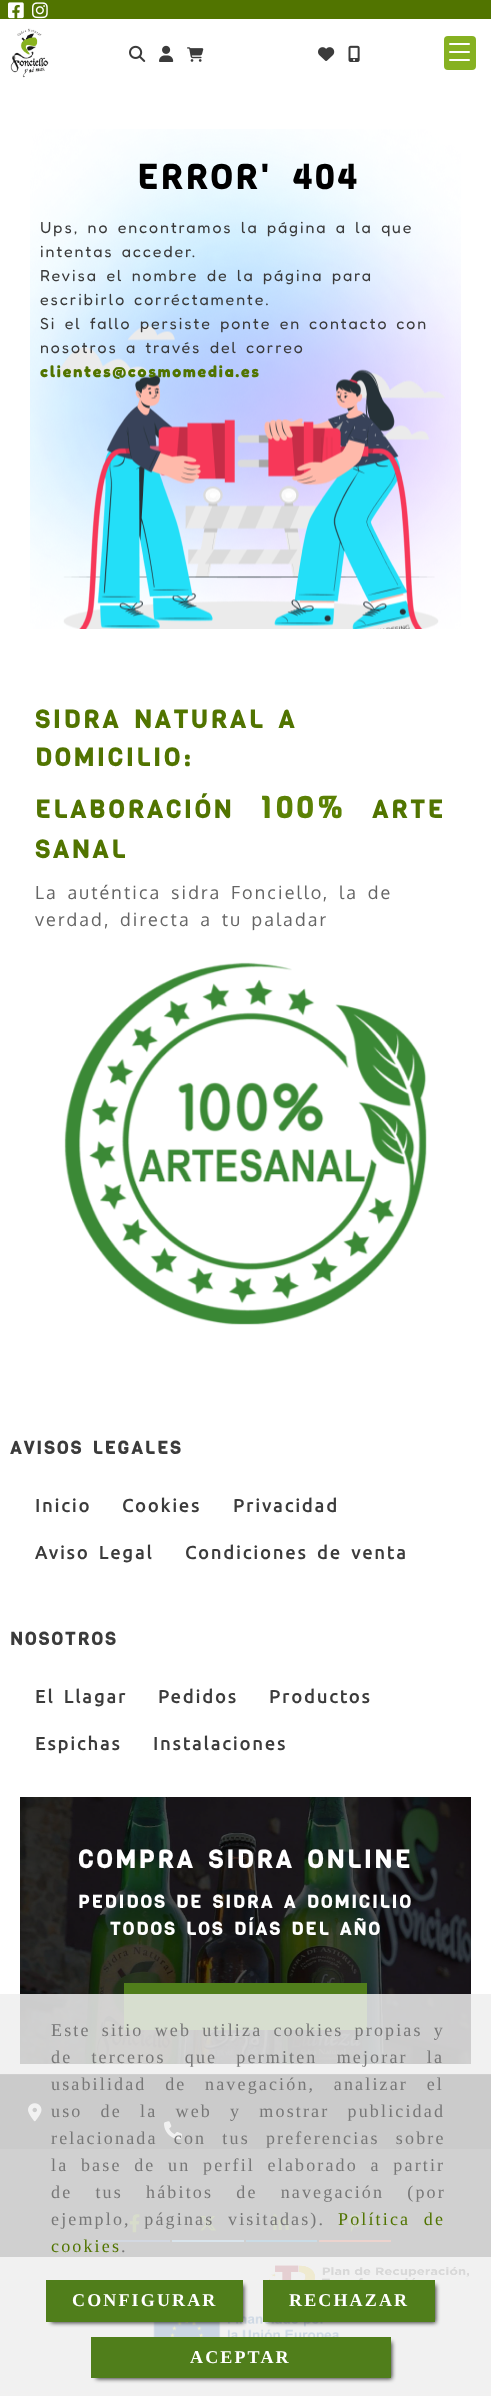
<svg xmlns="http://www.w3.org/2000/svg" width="491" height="2396">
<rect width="100%" height="100%" fill="#fff"/>
<rect width="491" height="19" fill="#517400"/>
<image x="8" y="2" width="16" height="17" href="media/1.png"/>
<image x="32" y="2" width="16" height="17" href="media/2.png"/>
<image x="10" y="28" width="39" height="50" href="media/3.png"/>
<image x="129" y="45" width="17" height="17" href="media/4.png"/>
<image x="159" y="45" width="15" height="17" href="media/5.png"/>
<image x="187" y="47" width="17" height="15" href="media/6.png"/>
<image x="318" y="47" width="17" height="14" href="media/7.png"/>
<image x="348" y="45" width="12" height="17" href="media/8.png"/>
<rect x="444" y="36" width="32" height="34" rx="4" fill="#86b121"/>
<rect x="449" y="51" width="21" height="2" rx="1" fill="#fff"/>
<rect x="449" y="43" width="21" height="2" rx="1" fill="#fff"/>
<rect x="449" y="59" width="21" height="2" rx="1" fill="#fff"/>
<image x="30" y="129" width="431" height="500" href="media/9.png"/>
<text x="137" y="189" style="font-family:Viga;font-size:34px;font-weight:bold;letter-spacing:2.75px;fill:#000">ERROR'</text>
<text x="292" y="189" style="font-family:Viga;font-size:34px;font-weight:bold;letter-spacing:2.75px;fill:#000">404</text>
<text x="40" y="233" word-spacing="2.5" style="font-family:Fredoka;font-size:16px;letter-spacing:1.9px;fill:#3b3b3b">Ups, no encontramos la página a la que</text>
<text x="40" y="257" word-spacing="2.5" style="font-family:Fredoka;font-size:16px;letter-spacing:1.9px;fill:#3b3b3b">intentas acceder.</text>
<text x="40" y="281" word-spacing="2.5" style="font-family:Fredoka;font-size:16px;letter-spacing:1.9px;fill:#3b3b3b">Revisa el nombre de la página para</text>
<text x="40" y="305" word-spacing="2.5" style="font-family:Fredoka;font-size:16px;letter-spacing:1.9px;fill:#3b3b3b">escribirlo corréctamente.</text>
<text x="40" y="329" word-spacing="2.5" style="font-family:Fredoka;font-size:16px;letter-spacing:1.9px;fill:#3b3b3b">Si el fallo persiste ponte en contacto con</text>
<text x="40" y="353" word-spacing="2.5" style="font-family:Fredoka;font-size:16px;letter-spacing:1.9px;fill:#3b3b3b">nosotros a través del correo</text>
<text x="40" y="377" style="font-family:Fredoka;font-size:16px;font-weight:bold;letter-spacing:1.9px;fill:#517400">clientes@cosmomedia.es</text>
<text x="35" y="728" word-spacing="4" style="font-family:Viga;font-size:25px;font-weight:bold;letter-spacing:3px;fill:#517400">SIDRA NATURAL A</text>
<text x="35" y="766" style="font-family:Viga;font-size:25px;font-weight:bold;letter-spacing:3px;fill:#517400">DOMICILIO:</text>
<text x="35" y="818" style="font-family:Viga;font-size:25px;font-weight:bold;letter-spacing:3px;fill:#517400">ELABORACIÓN</text>
<text x="259" y="818" style="font-family:Viga;font-size:30px;font-weight:bold;letter-spacing:3.5px;fill:#5b8104">100%</text>
<text x="372" y="818" style="font-family:Viga;font-size:25px;font-weight:bold;letter-spacing:3px;fill:#517400">ARTE</text>
<text x="35" y="858" style="font-family:Viga;font-size:25px;font-weight:bold;letter-spacing:3px;fill:#517400">SANAL</text>
<text x="35" y="899" word-spacing="3" style="font-family:Oxygen;font-size:18px;letter-spacing:2.15px;fill:#666">La auténtica sidra Fonciello, la de</text>
<text x="35" y="926" style="font-family:Oxygen;font-size:18px;letter-spacing:2.15px;fill:#666">verdad,</text>
<text x="120" y="926" word-spacing="3" style="font-family:Oxygen;font-size:18px;letter-spacing:2.15px;fill:#666">directa a tu paladar</text>
<image x="64" y="962" width="363" height="363" href="media/10.png"/>
<text x="10" y="1454" word-spacing="3" style="font-family:Viga;font-size:18px;font-weight:bold;letter-spacing:2.15px;fill:#3b3b3b">AVISOS LEGALES</text>
<text x="35" y="1512" style="font-family:Ubuntu;font-size:18px;font-weight:bold;letter-spacing:2.15px;fill:#3b3b3b">Inicio</text>
<text x="122" y="1512" style="font-family:Ubuntu;font-size:18px;font-weight:bold;letter-spacing:2.15px;fill:#3b3b3b">Cookies</text>
<text x="233" y="1512" style="font-family:Ubuntu;font-size:18px;font-weight:bold;letter-spacing:2.15px;fill:#3b3b3b">Privacidad</text>
<text x="35" y="1559" word-spacing="3" style="font-family:Ubuntu;font-size:18px;font-weight:bold;letter-spacing:2.15px;fill:#3b3b3b">Aviso Legal</text>
<text x="185" y="1559" word-spacing="3" style="font-family:Ubuntu;font-size:18px;font-weight:bold;letter-spacing:2.15px;fill:#3b3b3b">Condiciones de venta</text>
<text x="10" y="1645" style="font-family:Viga;font-size:18px;font-weight:bold;letter-spacing:2.15px;fill:#3b3b3b">NOSOTROS</text>
<text x="35" y="1703" word-spacing="3" style="font-family:Ubuntu;font-size:18px;font-weight:bold;letter-spacing:2.15px;fill:#3b3b3b">El Llagar</text>
<text x="158" y="1703" style="font-family:Ubuntu;font-size:18px;font-weight:bold;letter-spacing:2.15px;fill:#3b3b3b">Pedidos</text>
<text x="269" y="1703" style="font-family:Ubuntu;font-size:18px;font-weight:bold;letter-spacing:2.15px;fill:#3b3b3b">Productos</text>
<text x="35" y="1750" style="font-family:Ubuntu;font-size:18px;font-weight:bold;letter-spacing:2.15px;fill:#3b3b3b">Espichas</text>
<text x="153" y="1750" style="font-family:Ubuntu;font-size:18px;font-weight:bold;letter-spacing:2.15px;fill:#3b3b3b">Instalaciones</text>
<image x="20" y="1797" width="451" height="267" href="media/11.png"/>
<text x="78" y="1868" word-spacing="4" style="font-family:Viga;font-size:25px;font-weight:bold;letter-spacing:3px;fill:#fff">COMPRA SIDRA ONLINE</text>
<text x="78" y="1908" word-spacing="3" style="font-family:Viga;font-size:18px;font-weight:bold;letter-spacing:2.15px;fill:#fff">PEDIDOS DE SIDRA A DOMICILIO</text>
<text x="110" y="1935" word-spacing="3" style="font-family:Viga;font-size:18px;font-weight:bold;letter-spacing:2.15px;fill:#fff">TODOS LOS DÍAS DEL AÑO</text>
<rect x="124" y="1983" width="243" height="47" fill="#507e1b"/>
<rect y="2074" width="491" height="183" fill="#222"/>
<rect y="2075" width="491" height="74" fill="#000"/>
<image x="28" y="2103" width="14" height="19" href="media/12.png"/>
<image x="164" y="2121" width="18" height="19" href="media/13.png"/>
<rect x="98" y="2240" width="72" height="2" fill="#3a5795"/>
<image x="129" y="2214" width="11" height="19" href="media/14.png"/>
<rect x="172" y="2240" width="72" height="2" fill="#5ea9dd"/>
<image x="200" y="2215" width="16" height="16" href="media/15.png"/>
<rect x="246" y="2240" width="71" height="2" fill="#0274b3"/>
<image x="273" y="2214" width="16" height="16" href="media/16.png"/>
<rect x="319" y="2240" width="72" height="2" fill="#dc3914"/>
<image x="348" y="2214" width="14" height="18" href="media/17.png"/>
<image x="266" y="2265" width="203" height="15" href="media/18.png"/>
<image x="153" y="2316" width="187" height="21" href="media/19.png"/>
<rect y="1994" width="491" height="402" fill="#eeeeeed9"/>
<text x="51" y="2036" word-spacing="4.5" style="font-family:Liberation Serif;font-size:18px;letter-spacing:2.15px;fill:#777">Este sitio web utiliza cookies propias y</text>
<text x="51" y="2063" word-spacing="12.5" style="font-family:Liberation Serif;font-size:18px;letter-spacing:2.15px;fill:#777">de terceros que permiten mejorar la</text>
<text x="51" y="2090" word-spacing="12" style="font-family:Liberation Serif;font-size:18px;letter-spacing:2.15px;fill:#777">usabilidad de navegación, analizar el</text>
<text x="51" y="2117" word-spacing="11.5" style="font-family:Liberation Serif;font-size:18px;letter-spacing:2.15px;fill:#777">uso de la web y mostrar publicidad</text>
<text x="51" y="2144" word-spacing="9.5" style="font-family:Liberation Serif;font-size:18px;letter-spacing:2.15px;fill:#777">relacionada con tus preferencias sobre</text>
<text x="51" y="2171" word-spacing="6" style="font-family:Liberation Serif;font-size:18px;letter-spacing:2.15px;fill:#777">la base de un perfil elaborado a partir</text>
<text x="51" y="2198" word-spacing="16.5" style="font-family:Liberation Serif;font-size:18px;letter-spacing:2.15px;fill:#777">de tus hábitos de navegación (por</text>
<text x="51" y="2225" word-spacing="7" style="font-family:Liberation Serif;font-size:18px;letter-spacing:2.15px;fill:#777">ejemplo, páginas visitadas).</text>
<text x="338" y="2225" word-spacing="7" style="font-family:Liberation Serif;font-size:18px;letter-spacing:2.15px;fill:#517400">Política de</text>
<text x="51" y="2252" style="font-family:Liberation Serif;font-size:18px;letter-spacing:2.15px;fill:#517400">cookies</text>
<text x="121" y="2252" style="font-family:Liberation Serif;font-size:18px;letter-spacing:2.15px;fill:#777">.</text>
<rect x="51" y="2285" width="193" height="38" fill="#000000bf" filter="blur(2px)"/>
<rect x="46" y="2280" width="197" height="42" fill="#507e1b"/>
<text x="72" y="2306" style="font-family:Liberation Serif;font-size:18px;font-weight:bold;letter-spacing:2.15px;fill:#fff">CONFIGURAR</text>
<rect x="268" y="2285" width="168" height="38" fill="#000000bf" filter="blur(2px)"/>
<rect x="263" y="2280" width="172" height="42" fill="#507e1b"/>
<text x="289" y="2306" style="font-family:Liberation Serif;font-size:18px;font-weight:bold;letter-spacing:2.15px;fill:#fff">RECHAZAR</text>
<rect x="96" y="2342" width="296" height="37" fill="#000000bf" filter="blur(2px)"/>
<rect x="91" y="2337" width="300" height="41" fill="#507e1b"/>
<text x="190" y="2363" style="font-family:Liberation Serif;font-size:18px;font-weight:bold;letter-spacing:2.15px;fill:#fff">ACEPTAR</text>
</svg>
